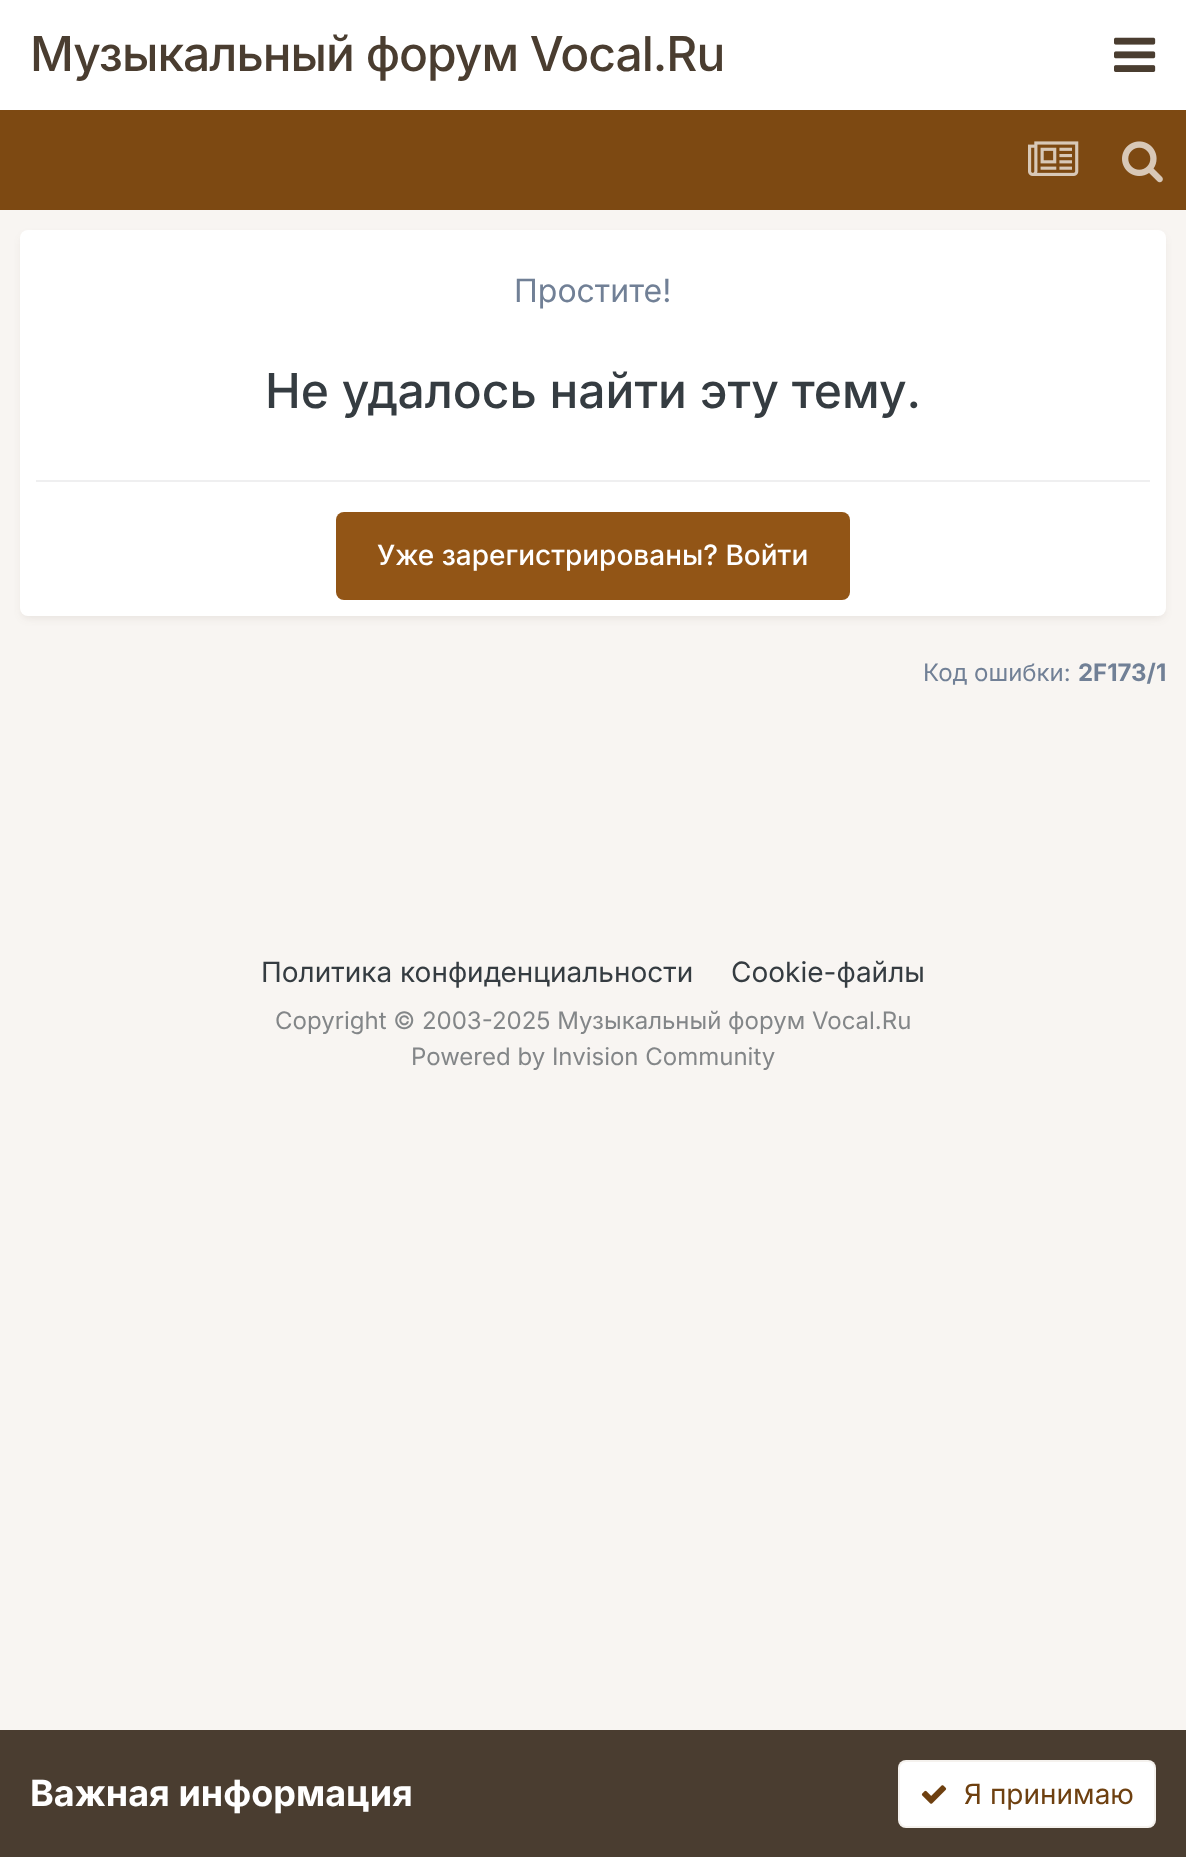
<svg xmlns="http://www.w3.org/2000/svg" width="1186" height="1857">
<rect width="100%" height="100%" fill="#f8f5f2"/>
<rect width="1186" height="110" fill="#fff"/>
<text x="30" y="71" style="font-family:Inter;font-size:48px;font-weight:500;letter-spacing:-1px;fill:#4a3d30">Музыкальный форум Vocal.Ru</text>
<image x="1114" y="37" width="42" height="35" href="media/1.png"/>
<rect y="110" width="1186" height="100" fill="#7d4912"/>
<image x="1028" y="141" width="51" height="35" href="media/2.png"/>
<image x="1122" y="141" width="41" height="42" href="media/3.png"/>
<rect x="22" y="236" width="1142" height="382" rx="6" fill="#4a3d301a" filter="blur(4px)"/>
<rect x="20" y="230" width="1146" height="386" rx="8" fill="#fff"/>
<text x="514" y="302" style="font-family:Inter;font-size:32px;fill:#718096">Простите!</text>
<text x="265" y="408" style="font-family:Inter;font-size:48px;font-weight:500;fill:#353c41">Не удалось найти эту тему.</text>
<rect x="36" y="480" width="1114" height="2" fill="#efeff0"/>
<rect x="336" y="512" width="514" height="88" rx="8" fill="#925516"/>
<text x="377" y="565" style="font-family:Inter;font-size:28px;font-weight:500;fill:#fff">Уже зарегистрированы? Войти</text>
<text x="923" y="681" style="font-family:Inter;font-size:24px;fill:#718096">Код ошибки:</text>
<text x="1078" y="681" style="font-family:Inter;font-size:24px;font-weight:bold;fill:#718096">2F173/1</text>
<text x="261" y="982" style="font-family:Inter;font-size:28px;fill:#353c41">Политика конфиденциальности</text>
<text x="731" y="982" style="font-family:Inter;font-size:28px;fill:#353c41">Cookie-файлы</text>
<text x="275" y="1029" style="font-family:Inter;font-size:24px;fill:#838688">Copyright © 2003-2025 Музыкальный форум Vocal.Ru</text>
<text x="411" y="1065" style="font-family:Inter;font-size:24px;fill:#838688">Powered by Invision Community</text>
<rect y="1730" width="1186" height="127" fill="#4a3d30"/>
<text x="30" y="1806" style="font-family:Inter;font-size:36px;font-weight:bold;fill:#fff">Важная информация</text>
<rect x="898" y="1760" width="258" height="68" rx="8" fill="#fff"/>
<rect x="899" y="1761" width="256" height="66" rx="7" fill="none" stroke="#6e401012" stroke-width="2"/>
<image x="921" y="1785" width="26" height="19" href="media/4.png"/>
<text x="964" y="1804" style="font-family:Inter;font-size:28px;fill:#6e4010">Я принимаю</text>
</svg>
